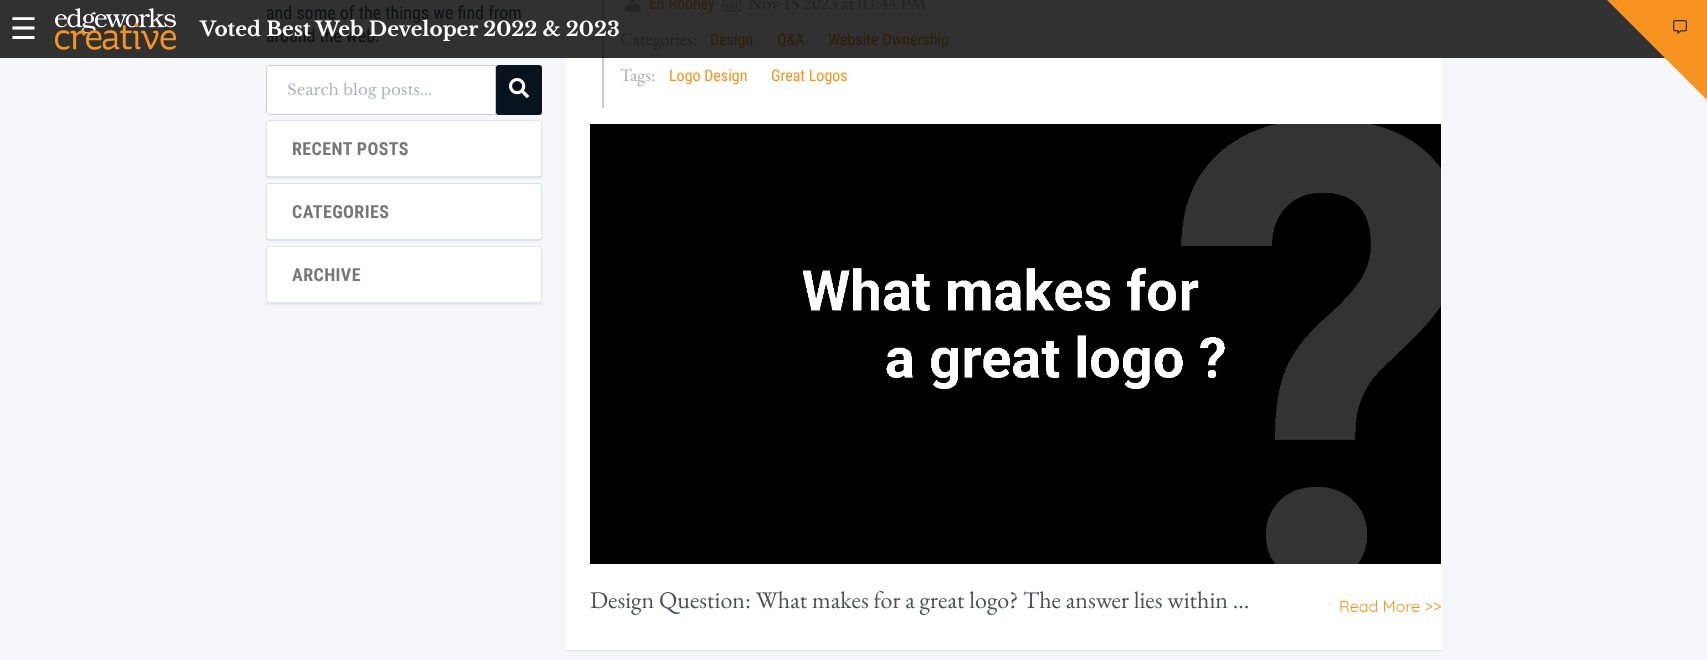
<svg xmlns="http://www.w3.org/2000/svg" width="1707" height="660">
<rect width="100%" height="100%" fill="#f5f7fb"/>
<rect width="1665" height="58" fill="#313132"/>
<text x="266" y="19" style="font-family:Roboto Condensed;font-size:18px;fill:#0f1011">and some of the things we find from</text>
<text x="266" y="42" style="font-family:Roboto Condensed;font-size:18px;fill:#0f1011">around the web.</text>
<path d="M270 65.5h225.5v49h-225.5c-2 0-3.5-1.5-3.5-3.5v-42c0-2 1.5-3.5 3.5-3.5z" fill="#fff" stroke="#ccc"/>
<text x="287" y="95" style="font-family:Libre Baskerville;font-size:15px;fill:#adb5bd">Search blog posts...</text>
<rect x="496" y="65" width="46" height="50" rx="3" fill="#08131d"/>
<rect x="496.5" y="65.5" width="45" height="49" rx="2.5" fill="none" stroke="#0028641f"/>
<image x="509" y="78" width="20" height="20" href="media/1.png"/>
<rect x="266" y="121" width="276" height="58" rx="3" fill="#0000000d" filter="blur(1px)"/>
<rect x="266" y="120" width="276" height="58" rx="3" fill="#fff"/>
<rect x="266.5" y="120.5" width="275" height="57" rx="2.5" fill="none" stroke="#0028641f"/>
<rect x="267" y="176" width="274" height="1" fill="#0028641f"/>
<text x="292" y="155" style="font-family:Roboto Condensed;font-size:18px;font-weight:bold;letter-spacing:0.4px;fill:#777">RECENT POSTS</text>
<rect x="266" y="184" width="276" height="58" rx="3" fill="#0000000d" filter="blur(1px)"/>
<rect x="266" y="183" width="276" height="58" rx="3" fill="#fff"/>
<rect x="266.5" y="183.5" width="275" height="57" rx="2.5" fill="none" stroke="#0028641f"/>
<rect x="267" y="239" width="274" height="1" fill="#0028641f"/>
<text x="292" y="218" style="font-family:Roboto Condensed;font-size:18px;font-weight:bold;letter-spacing:0.4px;fill:#777">CATEGORIES</text>
<rect x="266" y="247" width="276" height="58" rx="3" fill="#0000000d" filter="blur(1px)"/>
<rect x="266" y="246" width="276" height="58" rx="3" fill="#fff"/>
<rect x="266.5" y="246.5" width="275" height="57" rx="2.5" fill="none" stroke="#0028641f"/>
<rect x="267" y="302" width="274" height="1" fill="#0028641f"/>
<text x="292" y="281" style="font-family:Roboto Condensed;font-size:18px;font-weight:bold;letter-spacing:0.4px;fill:#777">ARCHIVE</text>
<rect x="566" y="58" width="876" height="592" fill="#fff"/>
<rect x="602" y="58" width="2" height="50" fill="#ccc"/>
<rect x="602" width="2" height="58" fill="#292929"/>
<image x="624" y="0" width="17" height="12" href="media/2.png"/>
<text x="649" y="9" style="font-family:Roboto Condensed;font-size:16px;fill:#311e06">Ed Rooney</text>
<image x="723" y="0" width="18" height="12" href="media/3.png"/>
<text x="748" y="9" style="font-family:EB Garamond;font-size:18px;fill:#212222">Nov 15 2023 at 03:44 PM</text>
<text x="620" y="45" style="font-family:EB Garamond;font-size:18px;fill:#212222">Categories:</text>
<text x="710" y="45" style="font-family:Roboto Condensed;font-size:16px;fill:#311e06">Design</text>
<text x="777" y="45" style="font-family:Roboto Condensed;font-size:16px;fill:#311e06">Q&amp;A</text>
<text x="828" y="45" style="font-family:Roboto Condensed;font-size:16px;fill:#311e06">Website Ownership</text>
<text x="620" y="81" style="font-family:EB Garamond;font-size:18px;fill:#a7a9ac">Tags:</text>
<text x="669" y="81" style="font-family:Roboto Condensed;font-size:16px;fill:#f7931e">Logo Design</text>
<text x="771" y="81" style="font-family:Roboto Condensed;font-size:16px;fill:#f7931e">Great Logos</text>
<image x="590" y="124" width="851" height="440" href="media/4.png"/>
<text x="590" y="608" style="font-family:EB Garamond;font-size:24px;fill:#495057">Design Question: What makes for a great logo? The answer lies within ...</text>
<text x="1339" y="612" style="font-family:Quicksand;font-size:16px;fill:#f7931e">Read More &gt;&gt;</text>
<rect x="566" y="650" width="876" height="1" fill="#e0e5ec"/>
<path d="M1707 0h-100l100 100z" fill="#f7931e"/>
<image x="1673" y="20" width="14" height="14" href="media/5.png"/>
<text x="10" y="39" style="font-family:DejaVu Sans;font-size:30px;fill:#fff">☰</text>
<image x="55" y="8" width="121" height="42" href="media/6.png"/>
<text x="200" y="36" style="font-family:Libre Baskerville;font-size:20px;font-weight:bold;fill:#fff">Voted Best Web Developer 2022 &amp; 2023</text>
</svg>
